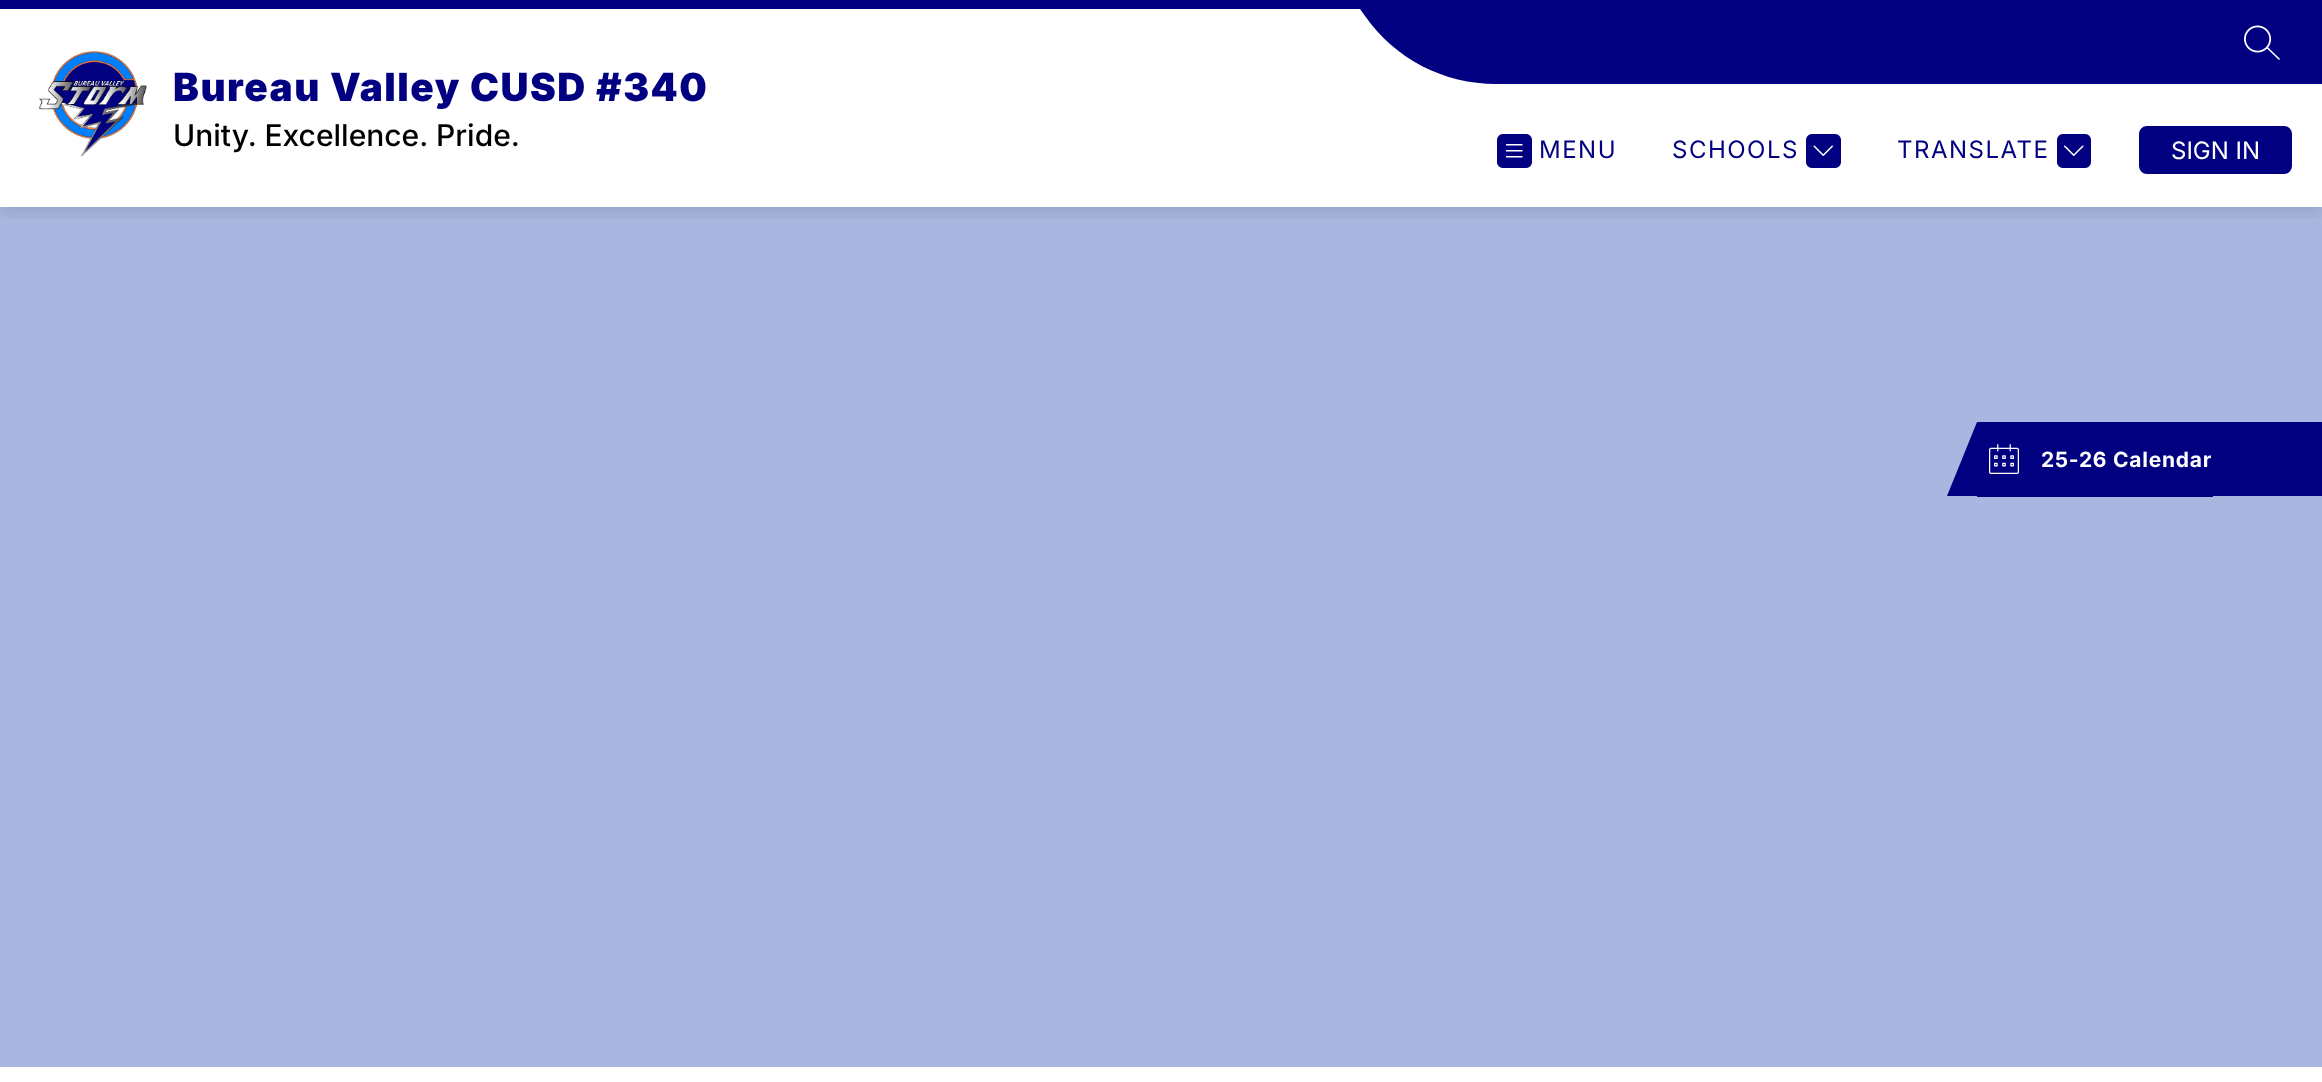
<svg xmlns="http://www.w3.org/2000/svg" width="2322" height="1082">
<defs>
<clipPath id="clip1"><rect x="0" y="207" width="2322" height="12"/></clipPath>
</defs>
<rect width="100%" height="100%" fill="#fff"/>
<rect y="207" width="2322" height="860" fill="#aab6df"/>
<g clip-path="url(#clip1)">
<rect y="6" width="2322" height="207" fill="#0000001a" filter="blur(7.5px)"/>
</g>
<rect width="1360" height="9" fill="#000080"/>
<image x="39" y="51" width="108" height="106" href="media/1.png"/>
<text x="173" y="101" style="font-family:Inter;font-size:38.75px;font-weight:900;letter-spacing:1.5px;fill:#000080">Bureau Valley CUSD #340</text>
<text x="173" y="146" style="font-family:Inter;font-size:30px;font-weight:500;fill:#000">Unity. Excellence. Pride.</text>
<rect x="1500" width="822" height="84" fill="#000080"/>
<path d="M1496 84h4v-84h-144c-1 0-2 1-1 2l10 14c30 43 79 68 131 68z" fill="#000080"/>
<image x="2244" y="25" width="36" height="35" href="media/2.png"/>
<image x="1497" y="134" width="35" height="34" href="media/3.png"/>
<text x="1539" y="158" style="font-family:Inter;font-size:24px;letter-spacing:1.5px;fill:#000080">MENU</text>
<text x="1672" y="158" style="font-family:Inter;font-size:24px;letter-spacing:1.5px;fill:#000080">SCHOOLS</text>
<image x="1806" y="134" width="35" height="34" href="media/4.png"/>
<text x="1897" y="158" style="font-family:Inter;font-size:24px;letter-spacing:1.5px;fill:#000080">TRANSLATE</text>
<image x="2057" y="134" width="34" height="34" href="media/5.png"/>
<rect x="2140" y="127" width="151" height="46" rx="7" fill="#000080" stroke="#000080" stroke-width="2"/>
<text x="2171" y="159" style="font-family:Inter;font-size:24px;fill:#fff">SIGN IN</text>
<path d="M2322 496h-375l30-74h345z" fill="#000080"/>
<rect x="1977" y="496" width="236" height="1" fill="#000080"/>
<image x="1989" y="444" width="30" height="30" href="media/6.png"/>
<text x="2041" y="467" style="font-family:Inter;font-size:21px;font-weight:bold;letter-spacing:0.75px;fill:#fff">25-26 Calendar</text>
</svg>
